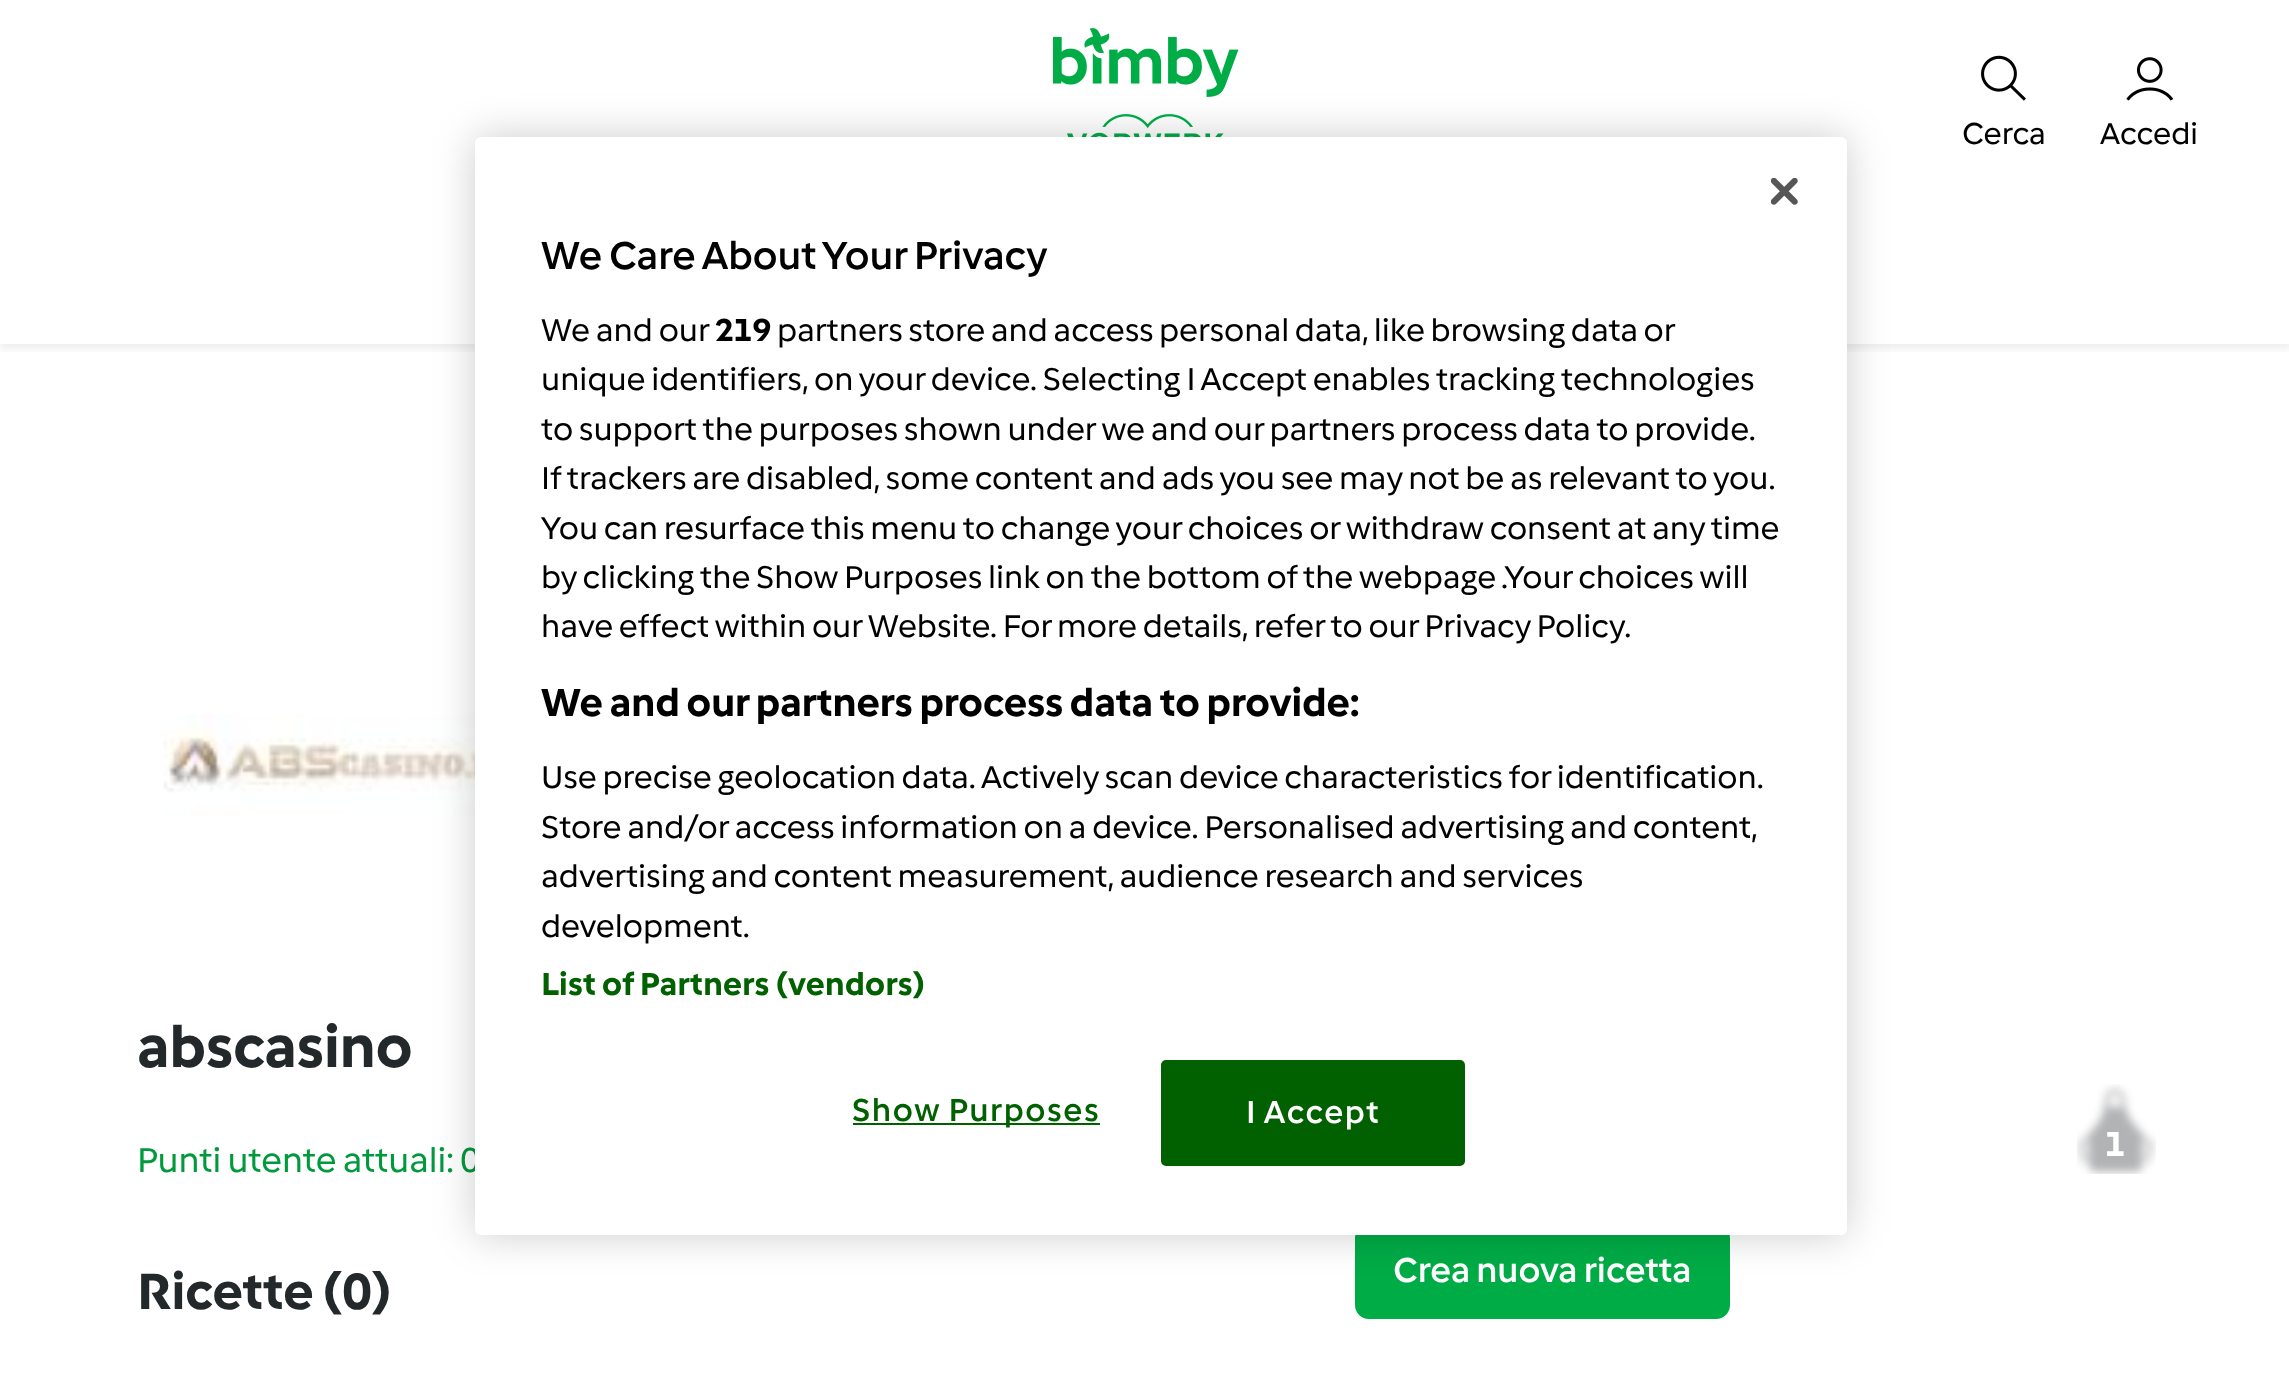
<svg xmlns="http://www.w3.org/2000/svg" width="2289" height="1380">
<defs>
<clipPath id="clip1"><rect x="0" y="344" width="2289" height="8"/></clipPath>
</defs>
<rect width="100%" height="100%" fill="#fff"/>
<g clip-path="url(#clip1)">
<rect y="5" width="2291" height="344" fill="#00000012" filter="blur(4.5px)"/>
</g>
<image x="1053" y="28" width="186" height="109" href="media/1.png"/>
<image x="1981" y="55" width="45" height="46" href="media/2.png"/>
<text x="1962" y="144" style="font-family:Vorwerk;font-size:31.5px;fill:#000">Cerca</text>
<image x="2126" y="57" width="48" height="44" href="media/3.png"/>
<text x="2100" y="144" style="font-family:Vorwerk;font-size:31.5px;fill:#000">Accedi</text>
<image x="163" y="714" width="312" height="102" href="media/4.png"/>
<text x="137" y="1067" style="font-family:Vorwerk;font-size:60.5px;font-weight:bold;fill:#23282a">abscasino</text>
<image x="2077" y="1084" width="79" height="90" href="media/5.png"/>
<text x="2105" y="1156" style="font-family:Vorwerk;font-size:36px;font-weight:bold;fill:#fff">1</text>
<text x="137" y="1172" style="font-family:Vorwerk;font-size:36px;fill:#009a3d">Punti utente attuali: 0</text>
<text x="137" y="1309" style="font-family:Vorwerk;font-size:52.75px;font-weight:bold;fill:#23282a">Ricette (0)</text>
<rect x="1356" y="1225" width="373" height="93" rx="13" fill="#00ac46" stroke="#00ac46" stroke-width="2"/>
<text x="1393" y="1282" style="font-family:Vorwerk;font-size:36px;font-weight:500;fill:#fff">Crea nuova ricetta</text>
<rect x="475" y="137" width="1372" height="1098" rx="6" fill="#00000033" filter="blur(20px)"/>
<rect x="475" y="137" width="1372" height="1098" rx="6" fill="#fff"/>
<image x="1771" y="178" width="27" height="27" href="media/6.png"/>
<text x="541" y="269" style="font-family:Vorwerk;font-size:40.5px;font-weight:500;fill:#000">We Care About Your Privacy</text>
<text x="541" y="341" style="font-family:Vorwerk;font-size:32.95px;fill:#000">We and our</text>
<text x="715" y="341" style="font-family:Vorwerk;font-size:32.95px;font-weight:bold;fill:#000">219</text>
<text x="777" y="341" word-spacing="-0.25" style="font-family:Vorwerk;font-size:32.95px;fill:#000">partners store and access personal data, like browsing data or</text>
<text x="541" y="390" style="font-family:Vorwerk;font-size:32.95px;fill:#000">unique identifiers, on your device. Selecting I Accept enables tracking technologies</text>
<text x="541" y="440" style="font-family:Vorwerk;font-size:32.95px;fill:#000">to support the purposes shown under we and our partners process data to provide.</text>
<text x="541" y="489" style="font-family:Vorwerk;font-size:32.95px;fill:#000">If trackers are disabled, some content and ads you see may not be as relevant to you.</text>
<text x="541" y="539" style="font-family:Vorwerk;font-size:32.95px;fill:#000">You can resurface this menu to change your choices or withdraw consent at any time</text>
<text x="541" y="588" style="font-family:Vorwerk;font-size:32.95px;fill:#000">by clicking the Show Purposes link on the bottom of the webpage</text>
<text x="1501" y="588" style="font-family:Vorwerk;font-size:32.95px;fill:#000">.Your choices will</text>
<text x="541" y="637" style="font-family:Vorwerk;font-size:32.95px;fill:#000">have effect within our Website. For more details, refer to our Privacy Policy.</text>
<text x="541" y="716" style="font-family:Vorwerk;font-size:40.5px;font-weight:bold;fill:#000">We and our partners process data to provide:</text>
<text x="541" y="788" style="font-family:Vorwerk;font-size:32.95px;fill:#000">Use precise geolocation data. Actively scan device characteristics for identification.</text>
<text x="541" y="838" style="font-family:Vorwerk;font-size:32.95px;fill:#000">Store and/or access information on a device. Personalised advertising and content,</text>
<text x="541" y="887" style="font-family:Vorwerk;font-size:32.95px;fill:#000">advertising and content measurement, audience research and services</text>
<text x="541" y="937" style="font-family:Vorwerk;font-size:32.95px;fill:#000">development.</text>
<text x="541" y="995" style="font-family:Vorwerk;font-size:32.95px;font-weight:bold;letter-spacing:0.3px;fill:#016100">List of Partners (vendors)</text>
<rect x="853" y="1123" width="247" height="2" fill="#016100"/>
<text x="852" y="1121" style="font-family:Vorwerk;font-size:32.95px;font-weight:500;letter-spacing:1.6px;fill:#016100">Show Purposes</text>
<rect x="1162" y="1061" width="302" height="104" rx="4" fill="#016100" stroke="#016100" stroke-width="2"/>
<text x="1246" y="1123" style="font-family:Vorwerk;font-size:32.95px;font-weight:500;letter-spacing:1.6px;fill:#fff">I Accept</text>
</svg>
